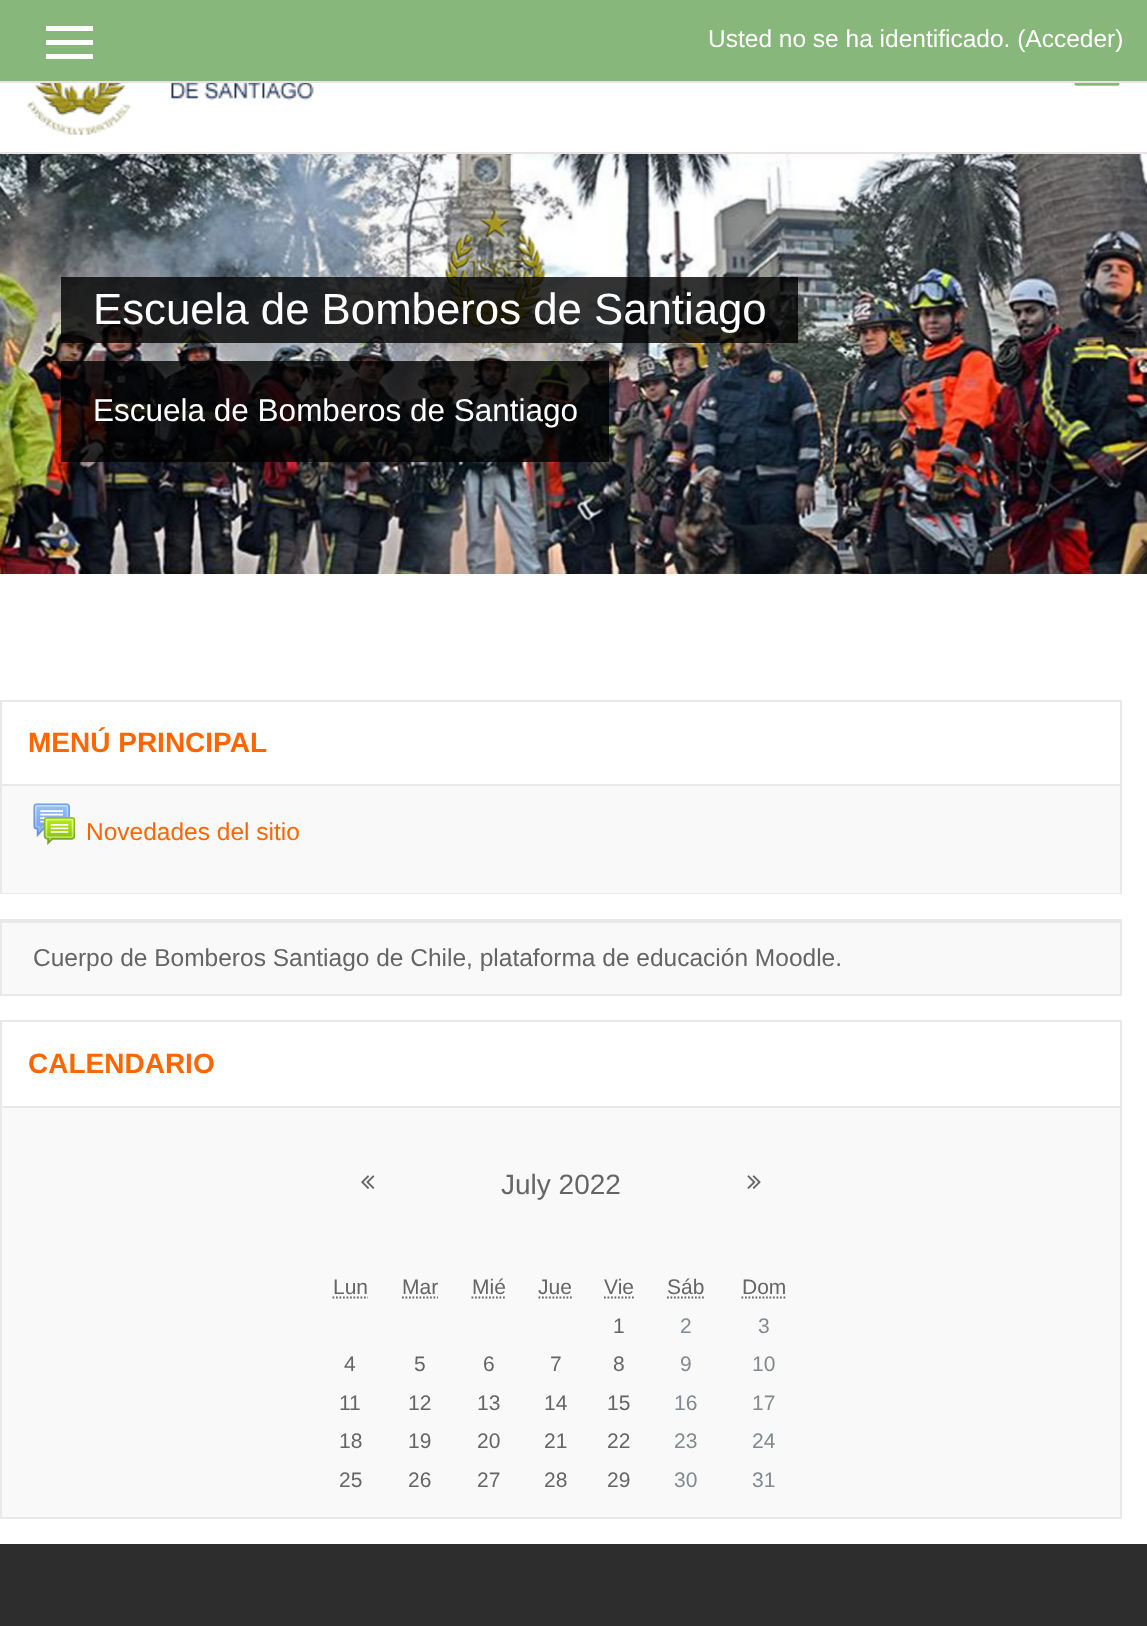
<svg xmlns="http://www.w3.org/2000/svg" width="1147" height="1626">
<rect width="100%" height="100%" fill="#fff"/>
<rect width="1147" height="81" fill="#88b77b"/>
<rect y="81" width="1147" height="2" fill="#e8e3e3"/>
<rect x="46" y="26" width="47" height="5" fill="#fff"/>
<rect x="46" y="40" width="47" height="5" fill="#fff"/>
<rect x="46" y="54" width="47" height="5" fill="#fff"/>
<text x="708" y="47" style="font-family:Liberation Sans;font-size:24.5px;fill:#fff">Usted no se ha identificado. (Acceder)</text>
<rect y="152" width="1147" height="2" fill="#e8e3e3"/>
<image x="27" y="83" width="287" height="52" href="media/1.png"/>
<image x="1074" y="83" width="46" height="3" href="media/2.png"/>
<image x="0" y="154" width="1147" height="420" href="media/3.png"/>
<rect x="61" y="277" width="737" height="66" fill="#000000cc"/>
<text x="93" y="324" style="font-family:Liberation Sans;font-size:43.75px;fill:#fff">Escuela de Bomberos de Santiago</text>
<rect x="61" y="361" width="548" height="101" fill="#000000cc"/>
<text x="93" y="421" style="font-family:Liberation Sans;font-size:31.5px;fill:#fff">Escuela de Bomberos de Santiago</text>
<rect x="1" y="701" width="1120" height="192" fill="none" stroke="#e9e9e9" stroke-width="2"/>
<text x="28" y="752" style="font-family:Liberation Sans;font-size:28px;font-weight:bold;fill:#f60">MENÚ PRINCIPAL</text>
<rect x="2" y="786" width="1118" height="107" fill="#f9f9f9"/>
<rect x="2" y="784" width="1118" height="2" fill="#e9e9e9"/>
<image x="33" y="803" width="42" height="42" href="media/4.png"/>
<text x="86" y="840" style="font-family:Liberation Sans;font-size:24.5px;fill:#f60">Novedades del sitio</text>
<rect x="1" y="920" width="1120" height="75" fill="none" stroke="#e9e9e9" stroke-width="2"/>
<rect x="2" y="923" width="1118" height="71" fill="#f9f9f9"/>
<rect x="2" y="921" width="1118" height="2" fill="#e9e9e9"/>
<text x="33" y="966" style="font-family:Liberation Sans;font-size:24.5px;fill:#656565">Cuerpo de Bomberos Santiago de Chile, plataforma de educación Moodle.</text>
<rect x="1" y="1021" width="1120" height="497" fill="none" stroke="#e9e9e9" stroke-width="2"/>
<text x="28" y="1073" style="font-family:Liberation Sans;font-size:28px;font-weight:bold;fill:#f60">CALENDARIO</text>
<rect x="2" y="1108" width="1118" height="409" fill="#f9f9f9"/>
<rect x="2" y="1106" width="1118" height="2" fill="#e9e9e9"/>
<image x="361" y="1175" width="14" height="14" href="media/5.png"/>
<text x="501" y="1194" style="font-family:Liberation Sans;font-size:28px;fill:#656565">July 2022</text>
<image x="747" y="1175" width="14" height="14" href="media/6.png"/>
<text x="333" y="1294" style="font-family:Liberation Sans;font-size:21px;fill:#656565">Lun</text>
<path d="M332.5 1297.5h35.5" fill="none" stroke="#656565" stroke-width="1.8" stroke-dasharray="1.75 1.75"/>
<text x="402" y="1294" style="font-family:Liberation Sans;font-size:21px;fill:#656565">Mar</text>
<path d="M402 1297.5h36" fill="none" stroke="#656565" stroke-width="1.8" stroke-dasharray="1.75 1.75"/>
<text x="472" y="1294" style="font-family:Liberation Sans;font-size:21px;fill:#656565">Mié</text>
<path d="M471.5 1297.5h34" fill="none" stroke="#656565" stroke-width="1.8" stroke-dasharray="1.75 1.75"/>
<text x="538" y="1294" style="font-family:Liberation Sans;font-size:21px;fill:#656565">Jue</text>
<path d="M538.5 1297.5h34" fill="none" stroke="#656565" stroke-width="1.8" stroke-dasharray="1.75 1.75"/>
<text x="604" y="1294" style="font-family:Liberation Sans;font-size:21px;fill:#656565">Vie</text>
<path d="M604 1297.5h30" fill="none" stroke="#656565" stroke-width="1.8" stroke-dasharray="1.75 1.75"/>
<text x="667" y="1294" style="font-family:Liberation Sans;font-size:21px;fill:#656565">Sáb</text>
<path d="M667 1297.5h37" fill="none" stroke="#656565" stroke-width="1.8" stroke-dasharray="1.75 1.75"/>
<text x="742" y="1294" style="font-family:Liberation Sans;font-size:21px;fill:#656565">Dom</text>
<path d="M741.5 1297.5h44.5" fill="none" stroke="#656565" stroke-width="1.8" stroke-dasharray="1.75 1.75"/>
<text x="613" y="1333" style="font-family:Liberation Sans;font-size:21px;fill:#656565">1</text>
<text x="680" y="1333" style="font-family:Liberation Sans;font-size:21px;fill:#818a91">2</text>
<text x="758" y="1333" style="font-family:Liberation Sans;font-size:21px;fill:#818a91">3</text>
<text x="344" y="1371" style="font-family:Liberation Sans;font-size:21px;fill:#656565">4</text>
<text x="414" y="1371" style="font-family:Liberation Sans;font-size:21px;fill:#656565">5</text>
<text x="483" y="1371" style="font-family:Liberation Sans;font-size:21px;fill:#656565">6</text>
<text x="550" y="1371" style="font-family:Liberation Sans;font-size:21px;fill:#656565">7</text>
<text x="613" y="1371" style="font-family:Liberation Sans;font-size:21px;fill:#656565">8</text>
<text x="680" y="1371" style="font-family:Liberation Sans;font-size:21px;fill:#818a91">9</text>
<text x="752" y="1371" style="font-family:Liberation Sans;font-size:21px;fill:#818a91">10</text>
<text x="339" y="1410" style="font-family:Liberation Sans;font-size:21px;fill:#656565">11</text>
<text x="408" y="1410" style="font-family:Liberation Sans;font-size:21px;fill:#656565">12</text>
<text x="477" y="1410" style="font-family:Liberation Sans;font-size:21px;fill:#656565">13</text>
<text x="544" y="1410" style="font-family:Liberation Sans;font-size:21px;fill:#656565">14</text>
<text x="607" y="1410" style="font-family:Liberation Sans;font-size:21px;fill:#656565">15</text>
<text x="674" y="1410" style="font-family:Liberation Sans;font-size:21px;fill:#818a91">16</text>
<text x="752" y="1410" style="font-family:Liberation Sans;font-size:21px;fill:#818a91">17</text>
<text x="339" y="1448" style="font-family:Liberation Sans;font-size:21px;fill:#656565">18</text>
<text x="408" y="1448" style="font-family:Liberation Sans;font-size:21px;fill:#656565">19</text>
<text x="477" y="1448" style="font-family:Liberation Sans;font-size:21px;fill:#656565">20</text>
<text x="544" y="1448" style="font-family:Liberation Sans;font-size:21px;fill:#656565">21</text>
<text x="607" y="1448" style="font-family:Liberation Sans;font-size:21px;fill:#656565">22</text>
<text x="674" y="1448" style="font-family:Liberation Sans;font-size:21px;fill:#818a91">23</text>
<text x="752" y="1448" style="font-family:Liberation Sans;font-size:21px;fill:#818a91">24</text>
<text x="339" y="1487" style="font-family:Liberation Sans;font-size:21px;fill:#656565">25</text>
<text x="408" y="1487" style="font-family:Liberation Sans;font-size:21px;fill:#656565">26</text>
<text x="477" y="1487" style="font-family:Liberation Sans;font-size:21px;fill:#656565">27</text>
<text x="544" y="1487" style="font-family:Liberation Sans;font-size:21px;fill:#656565">28</text>
<text x="607" y="1487" style="font-family:Liberation Sans;font-size:21px;fill:#656565">29</text>
<text x="674" y="1487" style="font-family:Liberation Sans;font-size:21px;fill:#818a91">30</text>
<text x="752" y="1487" style="font-family:Liberation Sans;font-size:21px;fill:#818a91">31</text>
<rect y="1544" width="1147" height="82" fill="#2d2d2d"/>
</svg>
